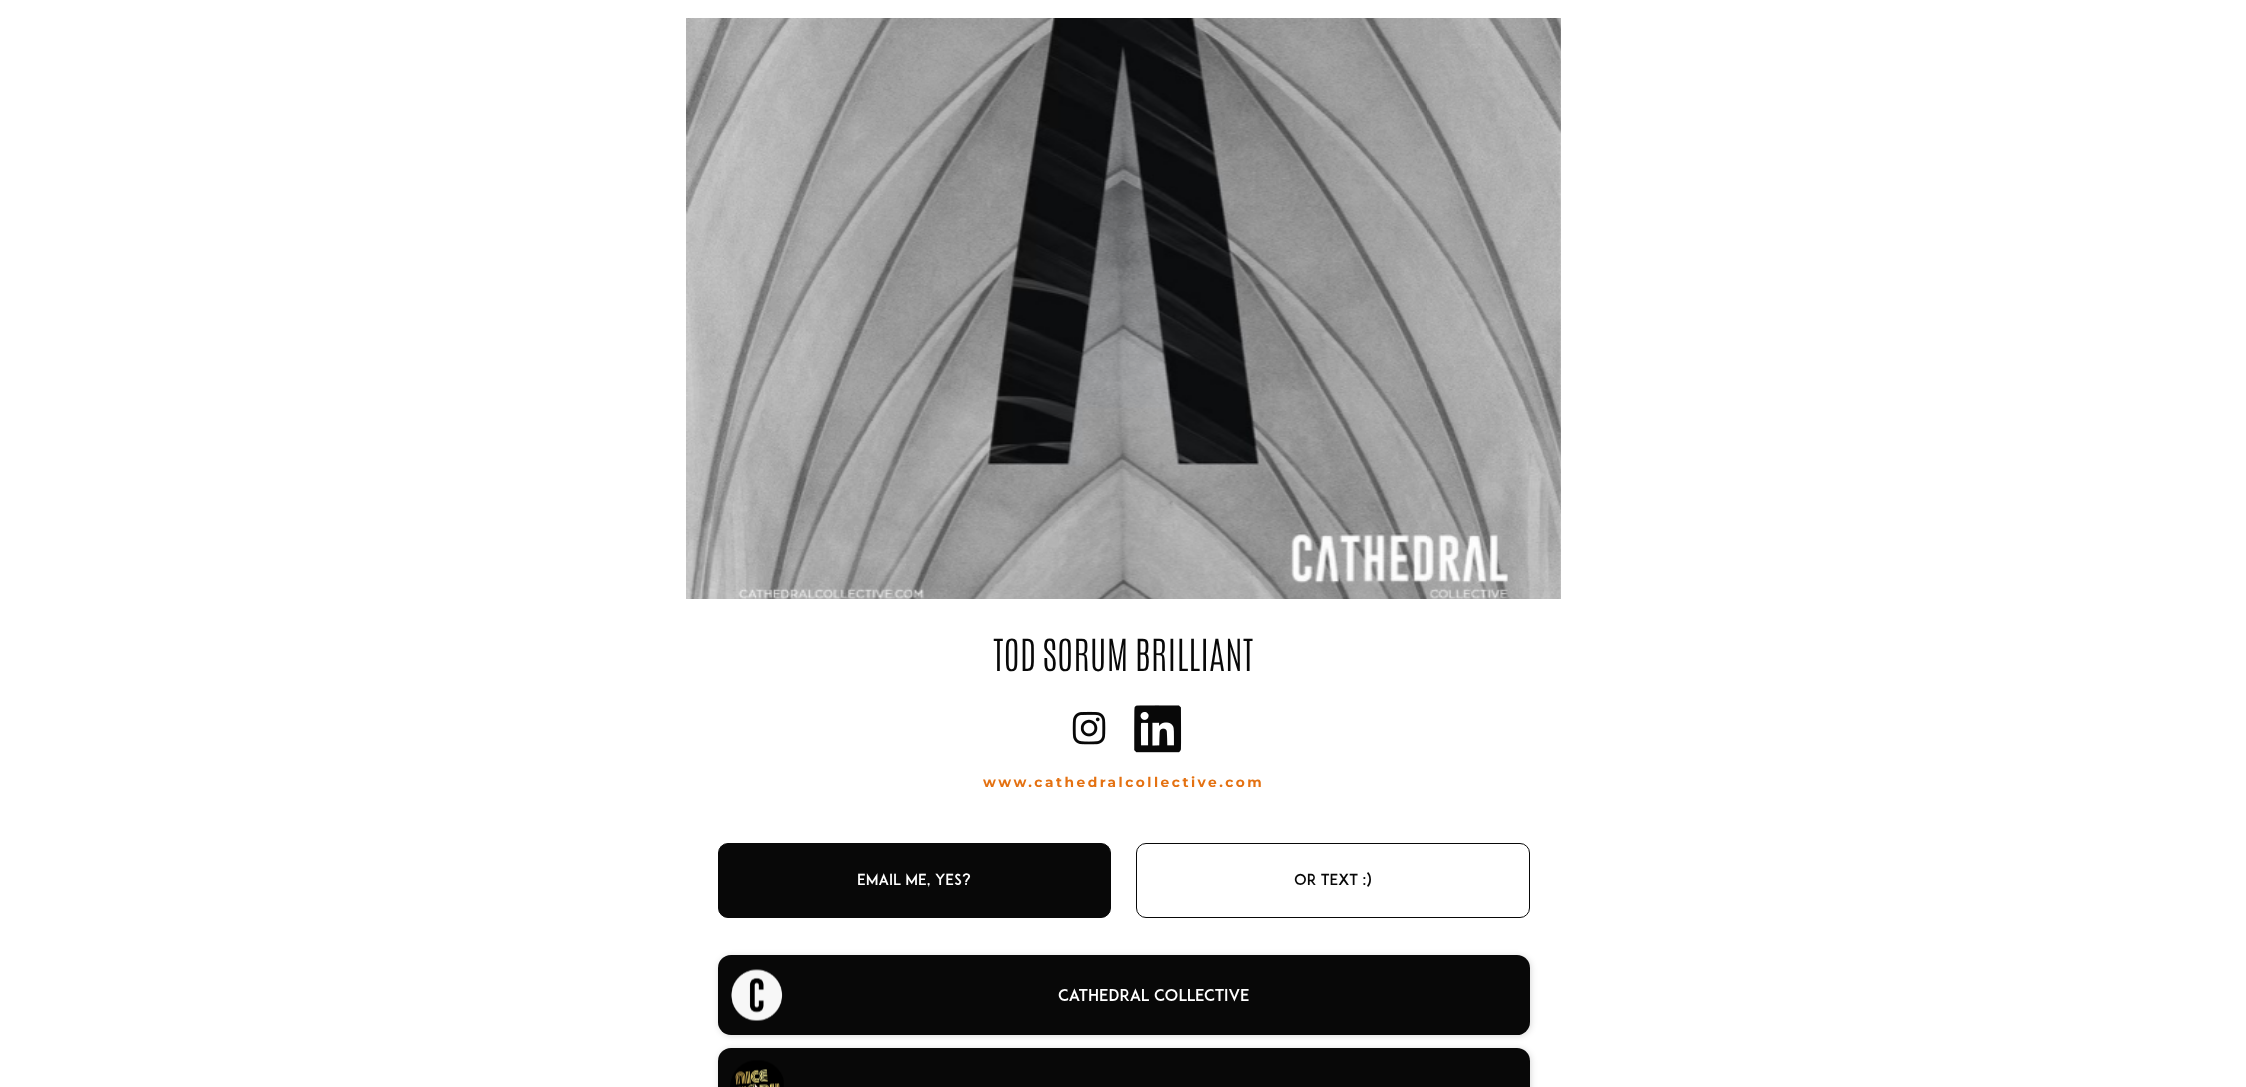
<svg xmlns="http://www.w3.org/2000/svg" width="2246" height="1087">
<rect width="100%" height="100%" fill="#fff"/>
<image x="686" y="18" width="875" height="581" href="media/1.png"/>
<text x="993" y="671" style="font-family:Antonio;font-size:37.5px;font-weight:300;fill:#080808">TOD SORUM BRILLIANT</text>
<image x="1072" y="711" width="34" height="34" href="media/2.png"/>
<image x="1134" y="705" width="48" height="48" href="media/3.png"/>
<text x="983" y="787" style="font-family:Montserrat;font-size:13.75px;font-weight:bold;letter-spacing:2.5px;fill:#e47111">www.cathedralcollective.com</text>
<rect x="718.5" y="843.5" width="392" height="74" rx="9.5" fill="#080808" stroke="#080808"/>
<text x="857" y="885" style="font-family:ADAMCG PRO;font-size:15px;fill:#fff">EMAIL ME, YES?</text>
<rect x="1136.5" y="843.5" width="393" height="74" rx="9.5" fill="none" stroke="#080808"/>
<text x="1294" y="885" style="font-family:ADAMCG PRO;font-size:15px;fill:#080808">OR TEXT :)</text>
<rect x="719" y="956" width="812" height="80" rx="13" fill="#08080826" filter="blur(3px)"/>
<rect x="718" y="955" width="812" height="80" rx="13" fill="#080808"/>
<image x="731" y="969" width="52" height="52" href="media/4.png"/>
<text x="1058" y="1001" style="font-family:ADAMCG PRO;font-size:16.25px;fill:#fff">CATHEDRAL COllective</text>
<rect x="719" y="1049" width="812" height="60" rx="13" fill="#08080826" filter="blur(3px)"/>
<rect x="718" y="1048" width="812" height="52" rx="13" fill="#080808"/>
<image x="730" y="1060" width="54" height="27" href="media/5.png"/>
</svg>
